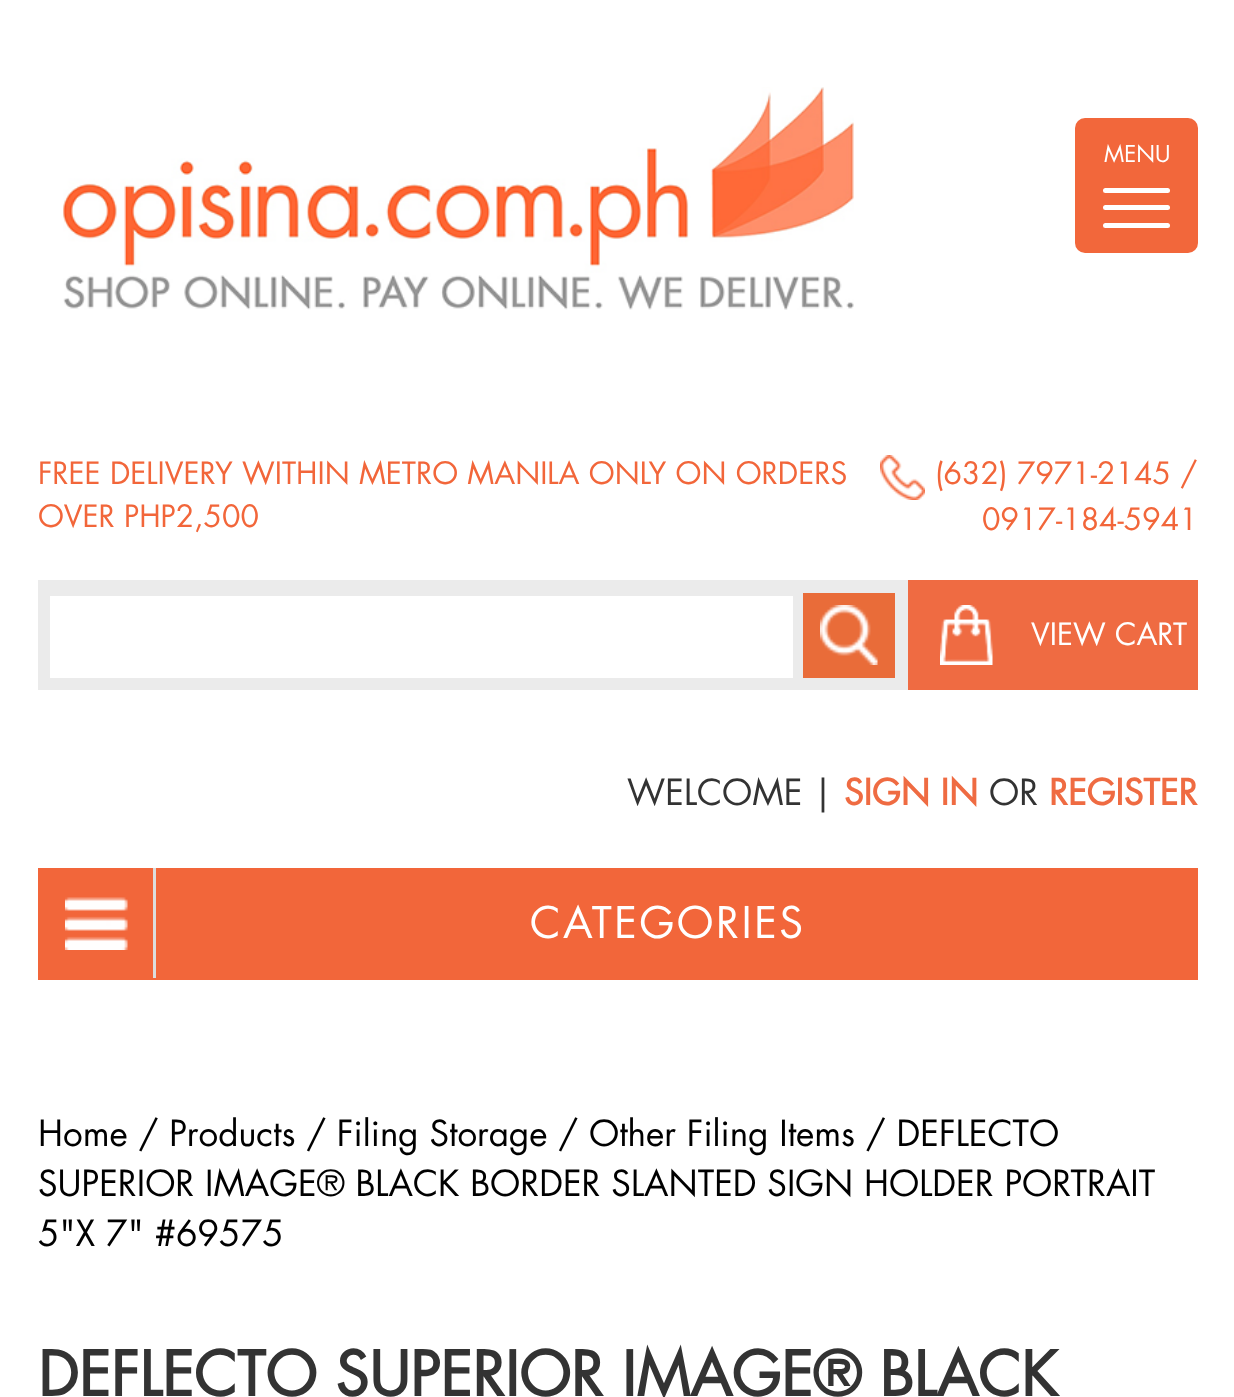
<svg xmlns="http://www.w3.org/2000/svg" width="1234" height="1397">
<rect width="100%" height="100%" fill="#fff"/>
<image x="63" y="87" width="791" height="223" href="media/1.png"/>
<rect x="1075" y="118" width="123" height="135" rx="10" fill="#f2673b"/>
<text x="1104" y="162" style="font-family:Futura;font-size:22.5px;fill:#fff">MENU</text>
<rect x="1103" y="188" width="67" height="5" rx="2.5" fill="#fff"/>
<rect x="1103" y="205" width="67" height="5" rx="2.5" fill="#fff"/>
<rect x="1103" y="223" width="67" height="5" rx="2.5" fill="#fff"/>
<text x="38" y="484" style="font-family:Futura;font-size:30px;fill:#f2663a">FREE DELIVERY WITHIN METRO MANILA ONLY ON ORDERS</text>
<text x="38" y="527" style="font-family:Futura;font-size:30px;fill:#f2663a">OVER PHP2,500</text>
<image x="880" y="455" width="45" height="45" href="media/2.png"/>
<text x="935" y="484" style="font-family:Futura;font-size:30px;fill:#f2663a">(632) 7971-2145 /</text>
<text x="982" y="530" style="font-family:Futura;font-size:30px;fill:#f2663a">0917-184-5941</text>
<rect x="38" y="580" width="870" height="110" fill="#ebebeb"/>
<rect x="50" y="596" width="743" height="82" fill="#fff"/>
<rect x="803" y="593" width="92" height="85" fill="#e96c39"/>
<image x="820" y="605" width="58" height="60" href="media/3.png"/>
<rect x="908" y="580" width="290" height="110" fill="#ef6b42"/>
<image x="940" y="605" width="53" height="60" href="media/4.png"/>
<text x="1031" y="645" style="font-family:Futura;font-size:30px;fill:#fff">VIEW CART</text>
<text x="627" y="805" style="font-family:Futura;font-size:35px;fill:#333">WELCOME |</text>
<text x="844" y="805" style="font-family:Futura;font-size:35px;font-weight:bold;fill:#ef6b42">SIGN IN</text>
<text x="989" y="805" style="font-family:Futura;font-size:35px;fill:#333">OR</text>
<text x="1049" y="805" style="font-family:Futura;font-size:35px;font-weight:bold;fill:#ef6b42">REGISTER</text>
<rect x="38" y="868" width="1160" height="112" fill="#f2663a"/>
<image x="65" y="897" width="63" height="53" href="media/5.png"/>
<rect x="153" y="868" width="3" height="110" fill="#ddd"/>
<text x="530" y="938" style="font-family:Futura;font-size:42.5px;letter-spacing:2.5px;fill:#fff">CATEGORIES</text>
<text x="38" y="1146" style="font-family:Futura;font-size:35px;fill:#000">Home / Products / Filing Storage / Other Filing Items / DEFLECTO</text>
<text x="38" y="1196" style="font-family:Futura;font-size:35px;fill:#000">SUPERIOR IMAGE® BLACK BORDER SLANTED SIGN HOLDER PORTRAIT</text>
<text x="38" y="1246" style="font-family:Futura;font-size:35px;fill:#000">5"X 7" #69575</text>
<text x="38" y="1396" style="font-family:Futura;font-size:60px;font-weight:bold;fill:#333">DEFLECTO SUPERIOR IMAGE® BLACK</text>
</svg>
